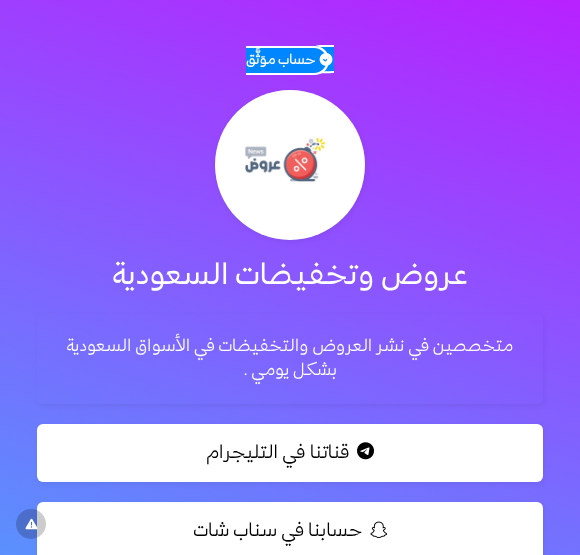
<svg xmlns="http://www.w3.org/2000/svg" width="580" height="555">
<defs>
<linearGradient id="g1" gradientUnits="userSpaceOnUse" x1="103" y1="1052" x2="477" y2="-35"><stop offset="0" stop-color="#21d4fd"/><stop offset="1" stop-color="#b721ff"/></linearGradient>
<clipPath id="clip1"><path d="M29 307h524v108h-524zm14 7h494c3.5 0 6 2.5 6 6v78c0 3.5-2.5 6-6 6h-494c-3.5 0-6-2.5-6-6v-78c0-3.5 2.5-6 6-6z" clip-rule="evenodd"/></clipPath>
</defs>
<rect width="100%" height="100%" fill="#fff"/>
<rect width="580" height="555" fill="url(#g1)"/>
<path d="M320.5 45h13.5v28h-13.5c-7.5 0-13.5-6-13.5-13.5v-1c0-7.5 6-13.5 13.5-13.5z" fill="#0086ff"/>
<path d="M320.5 45h13.5v28c-5 0-14.5 1-19-1c-13-5.5-9.5-27 5.5-27zm0 2h13.5v24c-4.5 0-14 1-18-1c-11.5-4.5-8-23 4.5-23z" fill="#fff" fill-rule="evenodd"/>
<path d="M246 46h68.5c8 0 14.5 6.5 14.5 14.5c0 8-6.5 14.5-14.5 14.5h-68.5z" fill="#0086ff"/>
<path d="M246 46h68c9 0 15 6 15 14c0 9-6 15-15 15h-68zm0 2h68c7 0 13 6 13 12c0 7-6 13-13 13h-68z" fill="#fff" fill-rule="evenodd"/>
<image x="319" y="53" width="14" height="13" href="media/1.png"/>
<text x="315" y="64" style="font-family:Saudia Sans;font-size:12.75px;font-weight:bold;direction:rtl;fill:#fff">حساب موَثَّق</text>
<rect x="216" y="92" width="150" height="150" rx="75" fill="#0000000f" filter="blur(2.5px)"/>
<image x="215" y="90" width="150" height="150" href="media/2.png"/>
<text x="467" y="284" style="font-family:Saudia Sans;font-size:28px;font-weight:500;direction:rtl;fill:#fff">عروض وتخفيضات السعودية</text>
<g clip-path="url(#clip1)">
<rect x="38" y="316" width="506" height="90" rx="6" fill="#0000000f" filter="blur(2.5px)"/>
</g>
<text x="513" y="351" style="font-family:Saudia Sans;font-size:16px;direction:rtl;fill:#fff">متخصصين في نشر العروض والتخفيضات في الأسواق السعودية</text>
<text x="337" y="375" style="font-family:Saudia Sans;font-size:16px;direction:rtl;fill:#fff">بشكل يومي .</text>
<rect x="38" y="426" width="506" height="58" rx="6" fill="#0000000f" filter="blur(2.5px)"/>
<rect x="37" y="424" width="506" height="58" rx="6" fill="#fff"/>
<image x="357" y="442" width="17" height="18" href="media/3.png"/>
<text x="349" y="458" style="font-family:Saudia Sans;font-size:17.5px;direction:rtl;fill:#000">قناتنا</text>
<text x="305" y="458" style="font-family:Saudia Sans;font-size:17.5px;direction:rtl;fill:#000">في التليجرام</text>
<rect x="38" y="504" width="506" height="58" rx="6" fill="#0000000f" filter="blur(2.5px)"/>
<rect x="37" y="502" width="506" height="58" rx="6" fill="#fff"/>
<image x="370" y="521" width="18" height="17" href="media/4.png"/>
<text x="362" y="536" style="font-family:Saudia Sans;font-size:17.5px;direction:rtl;fill:#000">حسابنا في سناب شات</text>
<circle cx="31" cy="524" r="15" fill="#00000033"/>
<image x="25" y="518" width="13" height="12" href="media/5.png"/>
</svg>
